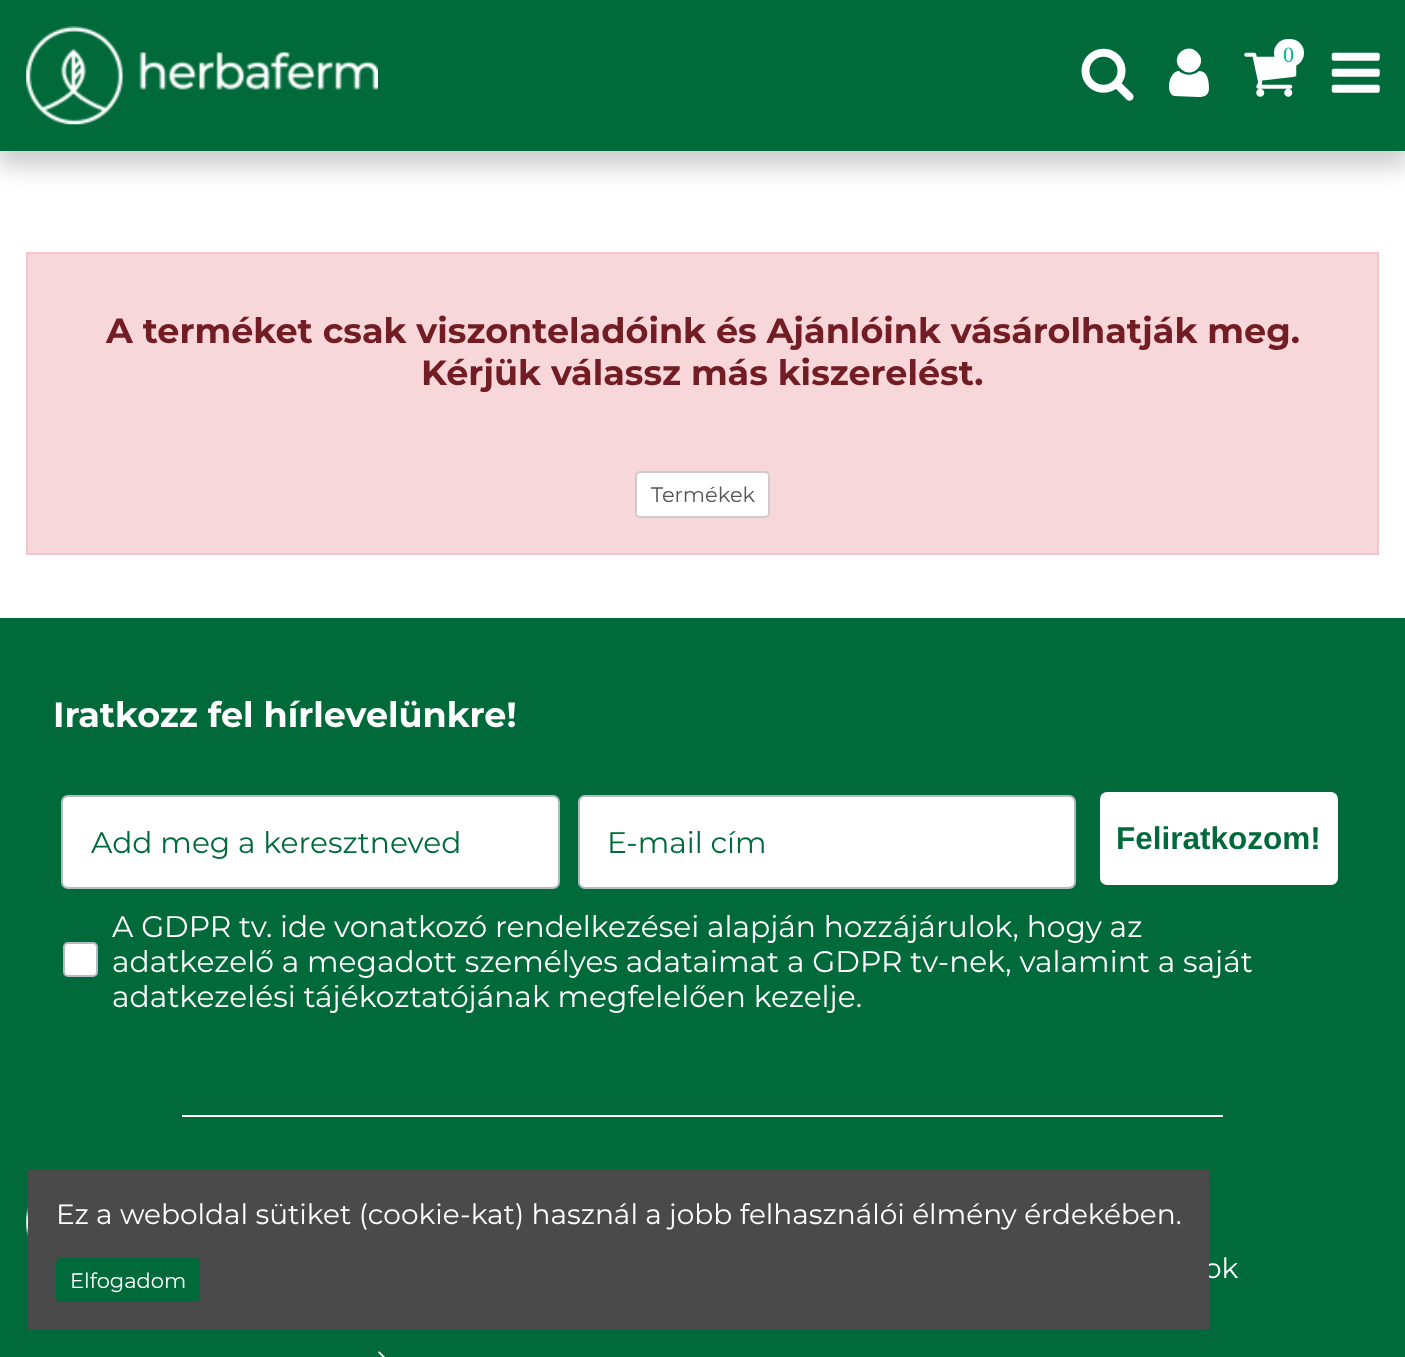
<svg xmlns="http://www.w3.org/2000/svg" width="1405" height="1357">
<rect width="100%" height="100%" fill="#fff"/>
<rect x="-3" y="9" width="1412" height="157" fill="#00000033" filter="blur(12px)"/>
<rect width="1405" height="151" fill="#006a3a"/>
<image x="26" y="26" width="352" height="99" href="media/1.png"/>
<image x="1081" y="48" width="53" height="53" href="media/2.png"/>
<path d="M1209 88c0 8-5 9-11 9l-24-1c-9-3-5-25 5-25c6 5 14 5 20 0c9 0 10 11 10 17zm-12-36c12 11-5 28-16 17c-12-11 5-28 16-17z" fill="#fff"/>
<image x="1244" y="52" width="53" height="45" href="media/3.png"/>
<rect x="1274" y="39" width="30" height="28" rx="14" fill="#fff"/>
<text x="1283" y="62" style="font-family:Liberation Serif;font-size:22px;fill:#00b990">0</text>
<image x="1331" y="52" width="49" height="41" href="media/4.png"/>
<rect x="27" y="253" width="1351" height="301" fill="#f8d7da" stroke="#f5c6cb" stroke-width="2"/>
<text x="106" y="343" style="font-family:Montserrat;font-size:35px;font-weight:bold;fill:#721c24">A terméket csak viszonteladóink és Ajánlóink vásárolhatják meg.</text>
<text x="421" y="385" style="font-family:Montserrat;font-size:35px;font-weight:bold;fill:#721c24">Kérjük válassz más kiszerelést.</text>
<rect x="636" y="472" width="133" height="45" rx="4" fill="#fff" stroke="#ccc" stroke-width="2"/>
<text x="651" y="502" style="font-family:Montserrat;font-size:21px;fill:#555">Termékek</text>
<rect y="618" width="1405" height="739" fill="#006a3a"/>
<text x="53" y="727" style="font-family:Montserrat;font-size:35px;font-weight:bold;fill:#fff">Iratkozz fel hírlevelünkre!</text>
<rect x="62" y="796" width="497" height="92" rx="6" fill="#fff" stroke="#b4bbc3" stroke-width="2"/>
<text x="91" y="853" style="font-family:Montserrat;font-size:29.75px;fill:#006a3b">Add meg a keresztneved</text>
<rect x="579" y="796" width="496" height="92" rx="6" fill="#fff" stroke="#b4bbc3" stroke-width="2"/>
<text x="607" y="853" style="font-family:Montserrat;font-size:29.75px;fill:#006a3b">E-mail cím</text>
<rect x="1098" y="790" width="242" height="97" rx="9" fill="#fff" stroke="#006a3b" stroke-width="4"/>
<text x="1116" y="849" style="font-family:Liberation Sans;font-size:31.5px;font-weight:bold;fill:#006a3b">Feliratkozom!</text>
<rect x="64" y="943" width="33" height="33" rx="4" fill="#fff" stroke="#b4bbc3" stroke-width="2"/>
<text x="112" y="937" style="font-family:Montserrat;font-size:29.75px;fill:#fff">A GDPR tv. ide vonatkozó rendelkezései alapján hozzájárulok, hogy az</text>
<text x="112" y="972" style="font-family:Montserrat;font-size:29.75px;fill:#fff">adatkezelő a megadott személyes adataimat a GDPR tv-nek, valamint a saját</text>
<text x="112" y="1007" style="font-family:Montserrat;font-size:29.75px;fill:#fff">adatkezelési tájékoztatójának megfelelően kezelje.</text>
<rect x="182" y="1115" width="1041" height="2" fill="#fff"/>
<image x="26" y="1206" width="2" height="32" href="media/5.png"/>
<text x="1204" y="1278" style="font-family:Montserrat;font-size:28px;fill:#fff">ok</text>
<image x="378" y="1351" width="7" height="6" href="media/6.png"/>
<rect x="28" y="1169" width="1181" height="161" fill="#4a4a4a"/>
<text x="56" y="1224" style="font-family:Montserrat;font-size:28px;fill:#fff">Ez a weboldal sütiket (cookie-kat) használ a jobb felhasználói élmény érdekében.</text>
<rect x="56" y="1258" width="144" height="44" rx="5" fill="#006a3a"/>
<text x="70" y="1288" style="font-family:Montserrat;font-size:21px;fill:#fff">Elfogadom</text>
</svg>
